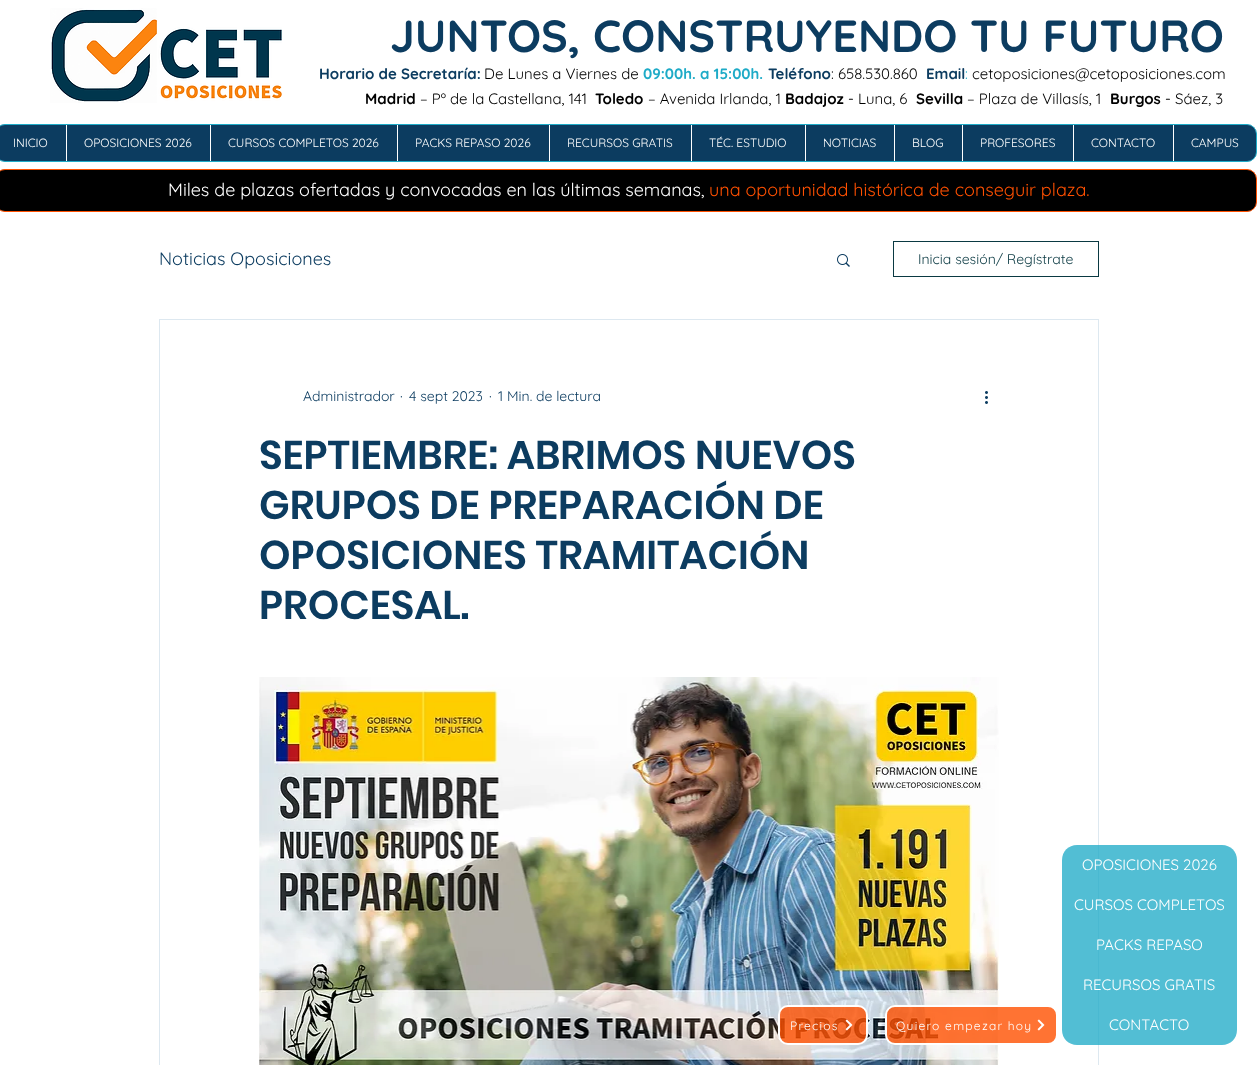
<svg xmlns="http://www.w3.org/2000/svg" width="1257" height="1065">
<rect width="100%" height="100%" fill="#fff"/>
<image x="50" y="8" width="232" height="95" href="media/1.png"/>
<text x="390" y="52" style="font-family:Quicksand;font-size:45px;font-weight:bold;fill:#0c3c60">JUNTOS, CONSTRUYENDO TU FUTURO</text>
<text x="319" y="79" style="font-family:Quicksand;font-size:15px;font-weight:bold;fill:#0c3c60">Horario de Secretaría:</text>
<text x="484" y="79" style="font-family:Quicksand;font-size:15px;fill:#000">De Lunes a Viernes de</text>
<text x="643" y="79" style="font-family:Quicksand;font-size:15px;font-weight:bold;fill:#1eabc7">09:00h. a 15:00h.</text>
<text x="768" y="79" style="font-family:Quicksand;font-size:15px;font-weight:bold;fill:#0c3c60">Teléfono</text>
<text x="831" y="79" style="font-family:Quicksand;font-size:15px;fill:#000">: 658.530.860</text>
<text x="926" y="79" style="font-family:Quicksand;font-size:15px;font-weight:bold;fill:#0c3c60">Email</text>
<text x="965" y="79" style="font-family:Quicksand;font-size:15px;fill:#1eabc7">:</text>
<text x="972" y="79" style="font-family:Quicksand;font-size:15px;fill:#000">cetoposiciones@cetoposiciones.com</text>
<text x="365" y="104" style="font-family:Quicksand;font-size:15px;font-weight:bold;fill:#000">Madrid</text>
<text x="420" y="104" style="font-family:Quicksand;font-size:15px;fill:#000">– Pº de la Castellana, 141</text>
<text x="595" y="104" style="font-family:Quicksand;font-size:15px;font-weight:bold;fill:#000">Toledo</text>
<text x="648" y="104" style="font-family:Quicksand;font-size:15px;fill:#000">– Avenida Irlanda, 1</text>
<text x="785" y="104" style="font-family:Quicksand;font-size:15px;font-weight:bold;fill:#000">Badajoz</text>
<text x="848" y="104" style="font-family:Quicksand;font-size:15px;fill:#000">- Luna, 6</text>
<text x="916" y="104" style="font-family:Quicksand;font-size:15px;font-weight:bold;fill:#000">Sevilla</text>
<text x="967" y="104" style="font-family:Quicksand;font-size:15px;fill:#000">– Plaza de Villasís, 1</text>
<text x="1110" y="104" style="font-family:Quicksand;font-size:15px;font-weight:bold;fill:#000">Burgos</text>
<text x="1165" y="104" style="font-family:Quicksand;font-size:15px;fill:#000">- Sáez, 3</text>
<rect x="-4.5" y="124.5" width="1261" height="37" rx="9.5" fill="#0c3c60" stroke="#1eabc7"/>
<text x="13" y="147" style="font-family:Quicksand;font-size:12px;fill:#fff">INICIO</text>
<rect x="66" y="125" width="1" height="36" fill="#fff"/>
<text x="84" y="147" style="font-family:Quicksand;font-size:12px;fill:#fff">OPOSICIONES 2026</text>
<rect x="210" y="125" width="1" height="36" fill="#fff"/>
<text x="228" y="147" style="font-family:Quicksand;font-size:12px;fill:#fff">CURSOS COMPLETOS 2026</text>
<rect x="397" y="125" width="1" height="36" fill="#fff"/>
<text x="415" y="147" style="font-family:Quicksand;font-size:12px;fill:#fff">PACKS REPASO 2026</text>
<rect x="549" y="125" width="1" height="36" fill="#fff"/>
<text x="567" y="147" style="font-family:Quicksand;font-size:12px;fill:#fff">RECURSOS GRATIS</text>
<rect x="691" y="125" width="1" height="36" fill="#fff"/>
<text x="709" y="147" style="font-family:Quicksand;font-size:12px;fill:#fff">TÉC. ESTUDIO</text>
<rect x="805" y="125" width="1" height="36" fill="#fff"/>
<text x="823" y="147" style="font-family:Quicksand;font-size:12px;fill:#fff">NOTICIAS</text>
<rect x="894" y="125" width="1" height="36" fill="#fff"/>
<text x="912" y="147" style="font-family:Quicksand;font-size:12px;fill:#fff">BLOG</text>
<rect x="962" y="125" width="1" height="36" fill="#fff"/>
<text x="980" y="147" style="font-family:Quicksand;font-size:12px;fill:#fff">PROFESORES</text>
<rect x="1073" y="125" width="1" height="36" fill="#fff"/>
<text x="1091" y="147" style="font-family:Quicksand;font-size:12px;fill:#fff">CONTACTO</text>
<rect x="1173" y="125" width="1" height="36" fill="#fff"/>
<text x="1191" y="147" style="font-family:Quicksand;font-size:12px;fill:#fff">CAMPUS</text>
<rect x="-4.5" y="169.5" width="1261" height="42" rx="9.5" fill="#000" stroke="#ff5000"/>
<text x="168" y="196" style="font-family:Quicksand;font-size:18px;fill:#fff">Miles de plazas ofertadas y convocadas en las últimas semanas,</text>
<text x="709" y="196" style="font-family:Quicksand;font-size:18px;fill:#ff5000">una oportunidad histórica de conseguir plaza.</text>
<text x="159" y="265" style="font-family:Quicksand;font-size:18px;fill:#0c3c60">Noticias Oposiciones</text>
<image x="837" y="254" width="13" height="13" href="media/2.png"/>
<rect x="893.5" y="241.5" width="205" height="35" fill="none" stroke="#0a3942"/>
<text x="918" y="264" style="font-family:Quicksand;font-size:14px;fill:#0a3942">Inicia sesión/ Regístrate</text>
<rect x="159.5" y="319.5" width="939" height="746" fill="none" stroke="#dde8f0"/>
<text x="303" y="401" style="font-family:Quicksand;font-size:14px;fill:#0c3c60">Administrador</text>
<text x="400" y="401" style="font-family:Quicksand;font-size:14px;fill:#0c3c60">·</text>
<text x="409" y="401" style="font-family:Quicksand;font-size:14px;fill:#0c3c60">4 sept 2023</text>
<text x="489" y="401" style="font-family:Quicksand;font-size:14px;fill:#0c3c60">·</text>
<text x="498" y="401" style="font-family:Quicksand;font-size:14px;fill:#0c3c60">1 Min. de lectura</text>
<image x="985" y="391" width="3" height="13" href="media/3.png"/>
<text x="259" y="469" style="font-family:Poppins;font-size:40px;font-weight:600;fill:#0c3c60">SEPTIEMBRE: ABRIMOS NUEVOS</text>
<text x="259" y="519" style="font-family:Poppins;font-size:40px;font-weight:600;fill:#0c3c60">GRUPOS DE PREPARACIÓN DE</text>
<text x="259" y="569" style="font-family:Poppins;font-size:40px;font-weight:600;fill:#0c3c60">OPOSICIONES TRAMITACIÓN</text>
<text x="259" y="619" style="font-family:Poppins;font-size:40px;font-weight:600;fill:#0c3c60">PROCESAL.</text>
<image x="259" y="677" width="740" height="388" href="media/4.png"/>
<rect x="779" y="1006" width="88" height="38" rx="9" fill="#ff5000cc" stroke="#fff" stroke-width="2"/>
<text x="790" y="1030" style="font-family:Quicksand;font-size:12px;letter-spacing:1.25px;fill:#fff">Precios</text>
<image x="845" y="1019" width="8" height="12" href="media/5.png"/>
<rect x="886" y="1006" width="171" height="38" rx="9" fill="#ff5000cc" stroke="#fff" stroke-width="2"/>
<text x="896" y="1030" style="font-family:Quicksand;font-size:12px;letter-spacing:1.25px;fill:#fff">Quiero empezar hoy</text>
<image x="1037" y="1019" width="8" height="12" href="media/6.png"/>
<path d="M1077 845h145c8.5 0 15 6.5 15 15v25h-175v-25c0-8.5 6.5-15 15-15z" fill="#1eabc7c4"/>
<text x="1082" y="870" style="font-family:Quicksand;font-size:15px;fill:#fff">OPOSICIONES 2026</text>
<rect x="1062" y="885" width="175" height="40" fill="#1eabc7c4"/>
<text x="1074" y="910" style="font-family:Quicksand;font-size:15px;fill:#fff">CURSOS COMPLETOS</text>
<rect x="1062" y="925" width="175" height="40" fill="#1eabc7c4"/>
<text x="1096" y="950" style="font-family:Quicksand;font-size:15px;fill:#fff">PACKS REPASO</text>
<rect x="1062" y="965" width="175" height="40" fill="#1eabc7c4"/>
<text x="1083" y="990" style="font-family:Quicksand;font-size:15px;fill:#fff">RECURSOS GRATIS</text>
<path d="M1062 1005h175v25c0 8.5-6.5 15-15 15h-145c-8.5 0-15-6.5-15-15z" fill="#1eabc7c4"/>
<text x="1109" y="1030" style="font-family:Quicksand;font-size:15px;fill:#fff">CONTACTO</text>
</svg>
